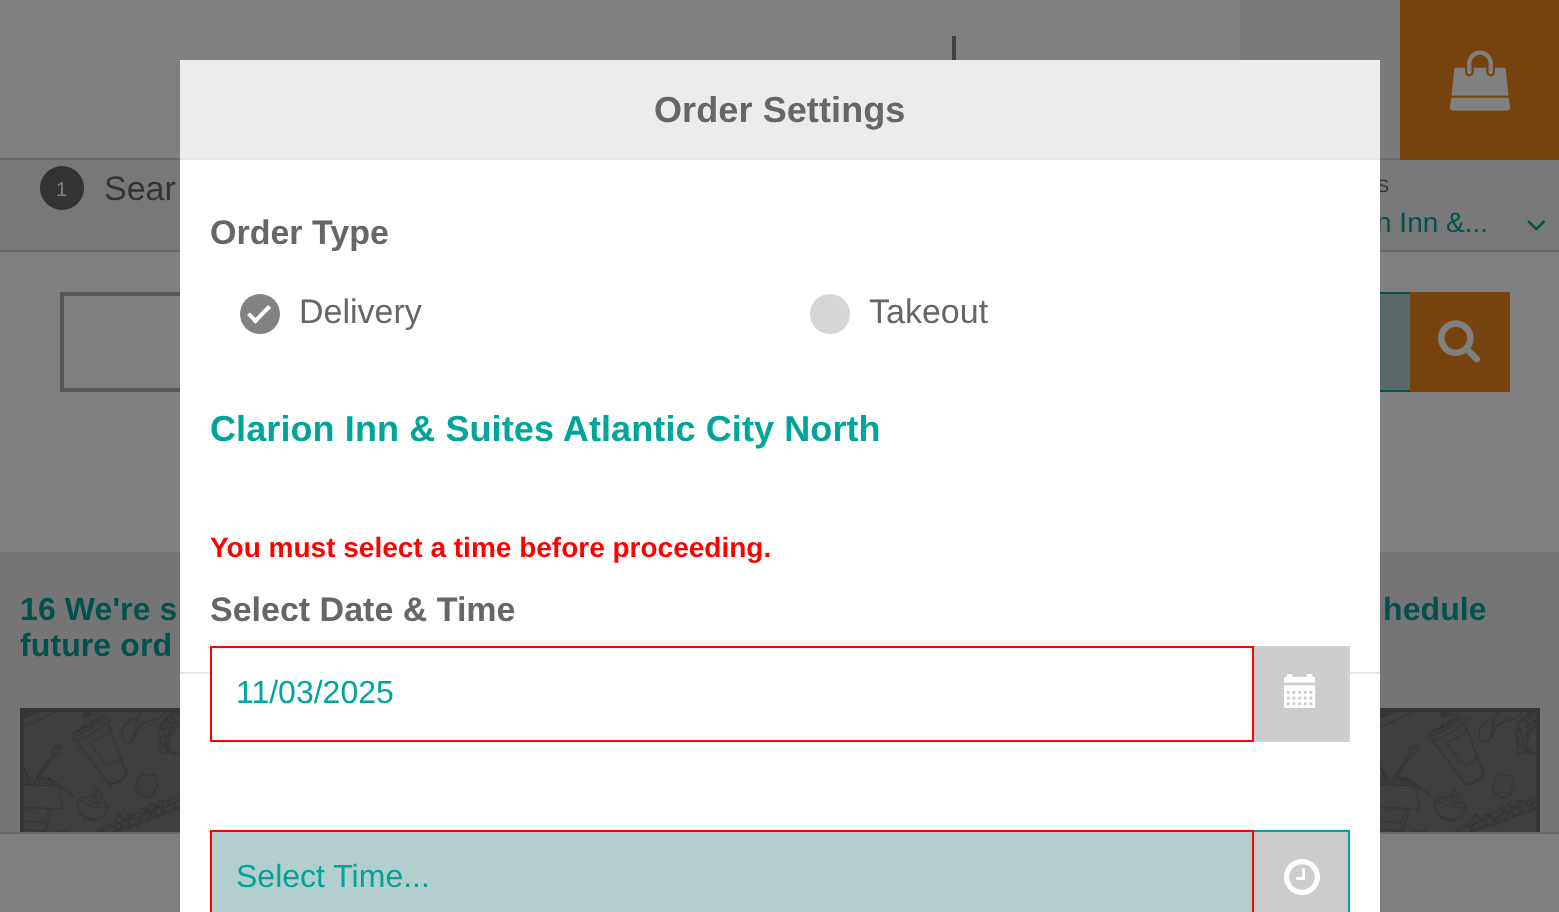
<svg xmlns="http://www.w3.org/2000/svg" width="1559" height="912">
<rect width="100%" height="100%" fill="#808080"/>
<rect y="158" width="180" height="2" fill="#68696a"/>
<rect x="952" y="34" width="4" height="26" fill="#404040"/>
<rect x="952" y="34" width="4" height="2" fill="#808080"/>
<rect x="1240" width="160" height="158" fill="#7a7a7a"/>
<rect x="1380" y="158" width="20" height="2" fill="#68696a"/>
<rect x="1400" width="159" height="160" fill="#77430e"/>
<image x="1450" y="50" width="60" height="61" href="media/1.png"/>
<rect y="250" width="1559" height="2" fill="#68696a"/>
<rect y="160" width="1559" height="90" fill="#787878"/>
<text x="1377" y="192" style="font-family:Liberation Sans;font-size:18px;fill:#333">S</text>
<text x="1376" y="232" style="font-family:Liberation Sans;font-size:28px;fill:#00534d">n Inn &amp;...</text>
<rect x="62" y="294" width="686" height="96" fill="none" stroke="#575757" stroke-width="4"/>
<rect y="552" width="1559" height="280" fill="#767575"/>
<rect x="22" y="710" width="736" height="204" fill="none" stroke="#363636" stroke-width="4"/>
<rect x="802" y="710" width="736" height="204" fill="none" stroke="#363636" stroke-width="4"/>
<rect x="20" y="834" width="1520" height="78" fill="#7f7f7f"/>
<rect y="832" width="1559" height="2" fill="#68696a"/>
<rect x="180" y="160" width="1200" height="752" fill="#fff"/>
<rect x="180" y="60" width="1200" height="98" fill="#ececec"/>
<rect x="180" y="158" width="1200" height="2" fill="#e5e5e5"/>
<text x="654" y="122" style="font-family:Liberation Sans;font-size:36px;font-weight:bold;letter-spacing:0.1px;fill:#666">Order Settings</text>
<text x="210" y="244" style="font-family:Liberation Sans;font-size:34px;font-weight:bold;fill:#666">Order Type</text>
<circle cx="260" cy="314" r="20" fill="#828282"/>
<path d="M252.5 321l15.5-16l3 3l-15.5 15.5z" fill="#fff"/>
<path d="M247 315l3-2.5l8.5 8.5l-3 2.5z" fill="#fff"/>
<text x="299" y="323" style="font-family:Liberation Sans;font-size:34px;fill:#666">Delivery</text>
<circle cx="830" cy="314" r="20" fill="#d6d6d6"/>
<text x="869" y="323" style="font-family:Liberation Sans;font-size:34px;fill:#666">Takeout</text>
<text x="210" y="441" style="font-family:Liberation Sans;font-size:36px;font-weight:bold;letter-spacing:0.1px;fill:#00a599">Clarion Inn &amp; Suites Atlantic City North</text>
<text x="210" y="557" style="font-family:Liberation Sans;font-size:28px;font-weight:bold;fill:#f00">You must select a time before proceeding.</text>
<text x="210" y="621" style="font-family:Liberation Sans;font-size:34px;font-weight:bold;fill:#666">Select Date &amp; Time</text>
<rect x="180" y="672" width="1200" height="2" fill="#e5e5e5"/>
<rect x="212" y="672" width="1040" height="2" fill="#fff"/>
<rect x="211" y="647" width="1042" height="94" fill="none" stroke="#f00" stroke-width="2"/>
<text x="236" y="703" style="font-family:Liberation Sans;font-size:32px;fill:#00a599">11/03/2025</text>
<rect x="1254" y="648" width="94" height="92" fill="#ccc"/>
<rect x="1254" y="646" width="96" height="2" fill="#d1d2d4"/>
<rect x="1348" y="646" width="2" height="96" fill="#d1d2d4"/>
<rect x="1254" y="740" width="96" height="2" fill="#d1d2d4"/>
<image x="1284" y="674" width="32" height="34" href="media/2.png"/>
<rect x="211" y="831" width="1042" height="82" fill="#b3cfcd" stroke="#f00" stroke-width="2"/>
<text x="236" y="887" style="font-family:Liberation Sans;font-size:32px;fill:#00a599">Select Time...</text>
<rect x="1254" y="832" width="94" height="80" fill="#ccc"/>
<rect x="1254" y="830" width="96" height="2" fill="#00a599"/>
<rect x="1348" y="830" width="2" height="82" fill="#00a599"/>
<image x="1284" y="859" width="36" height="36" href="media/3.png"/>
<circle cx="62" cy="188" r="22" fill="#333"/>
<text x="56" y="196" style="font-family:Liberation Sans;font-size:20px;fill:#808080">1</text>
<text x="104" y="200" style="font-family:Liberation Sans;font-size:34px;fill:#333">Sear</text>
<image x="1527" y="220" width="19" height="11" href="media/4.png"/>
<rect x="1380" y="294" width="30" height="96" fill="#5a6867"/>
<rect x="1380" y="292" width="30" height="2" fill="#00534d"/>
<rect x="1380" y="390" width="30" height="2" fill="#00534d"/>
<rect x="1410" y="292" width="100" height="100" fill="#77430e"/>
<image x="1438" y="320" width="43" height="43" href="media/5.png"/>
<text x="20" y="620" style="font-family:Liberation Sans;font-size:32px;font-weight:bold;letter-spacing:0.1px;fill:#00534d">16 We're s</text>
<text x="1383" y="620" style="font-family:Liberation Sans;font-size:32px;font-weight:bold;letter-spacing:0.1px;fill:#00534d">hedule</text>
<text x="20" y="656" style="font-family:Liberation Sans;font-size:32px;font-weight:bold;letter-spacing:0.1px;fill:#00534d">future ord</text>
<image x="24" y="712" width="156" height="120" href="media/6.png"/>
<image x="1380" y="712" width="156" height="120" href="media/7.png"/>
</svg>
